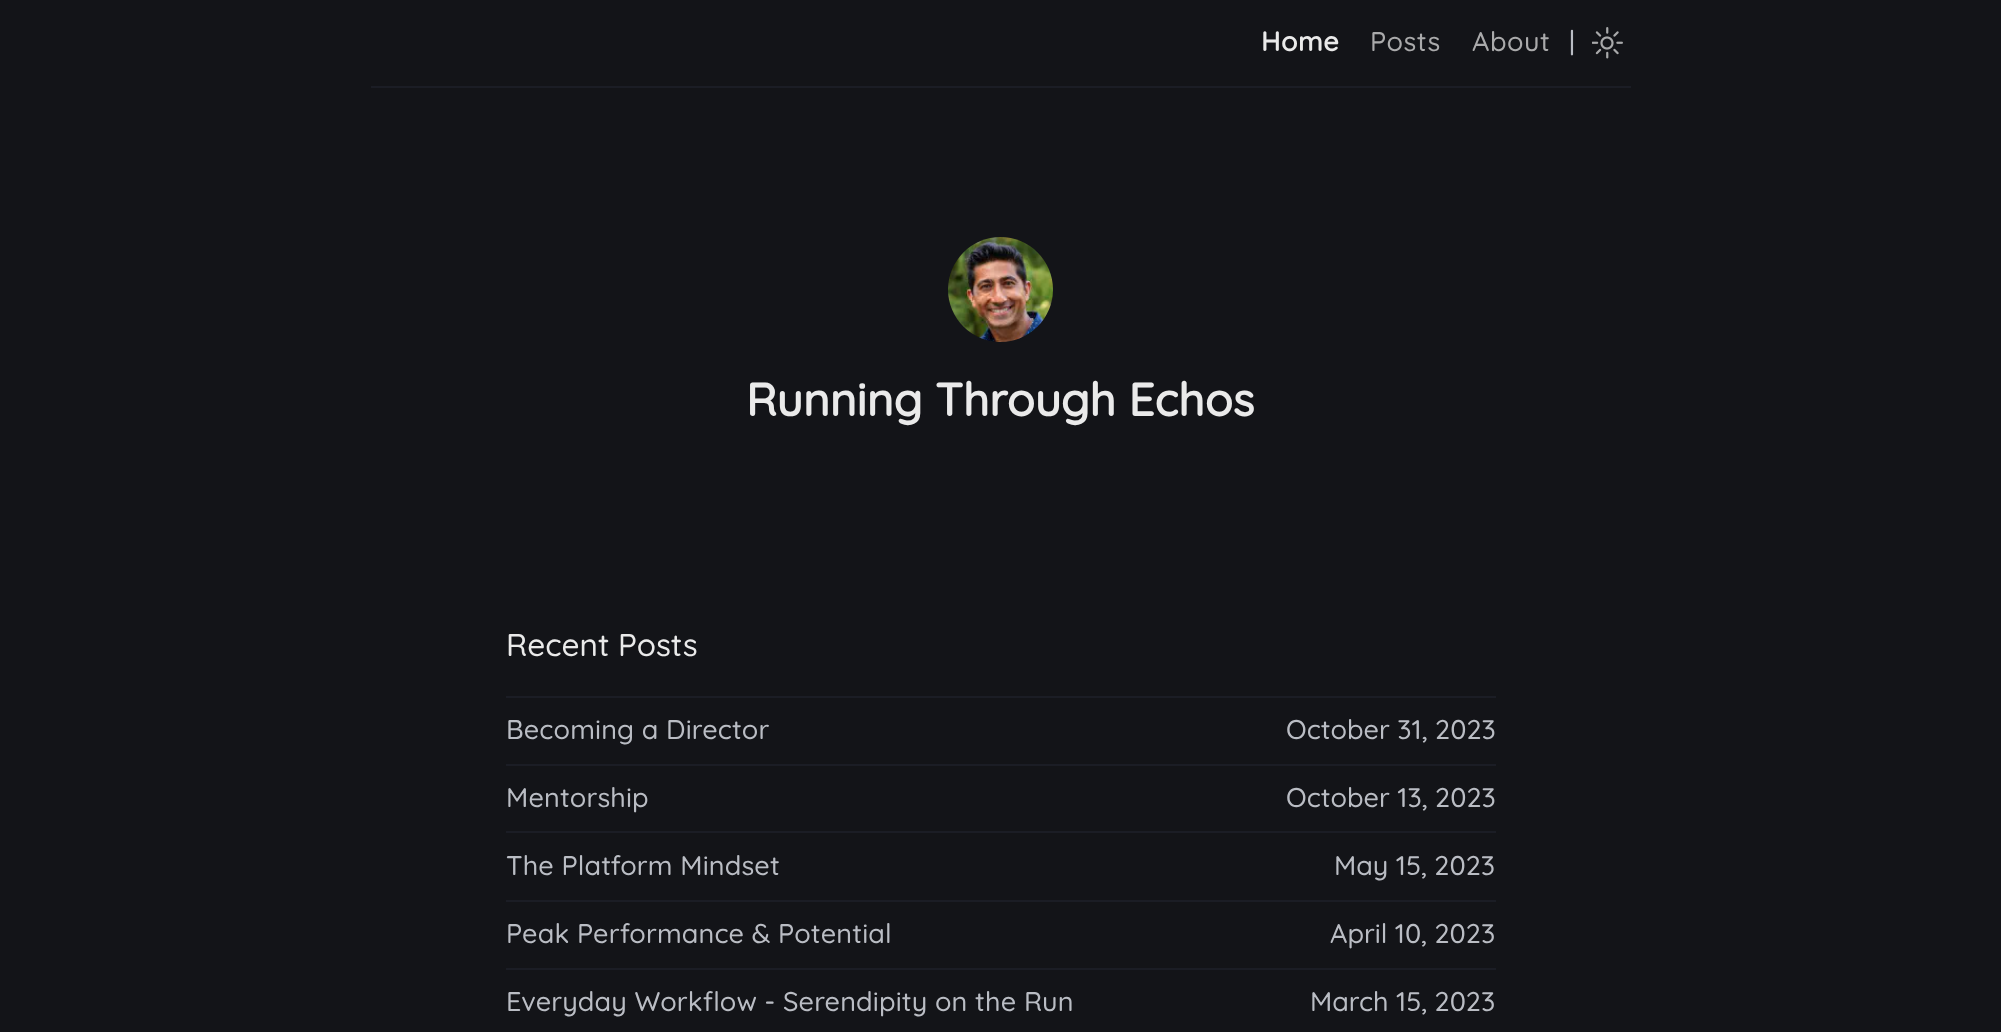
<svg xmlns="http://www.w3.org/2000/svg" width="2001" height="1032">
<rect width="100%" height="100%" fill="#131418"/>
<rect x="371" y="86" width="1260" height="2" fill="#1b1d25"/>
<text x="1261" y="51" style="font-family:Quicksand;font-size:27px;font-weight:bold;letter-spacing:0.5px;fill:#eaeaea">Home</text>
<text x="1370" y="51" style="font-family:Quicksand;font-size:27px;font-weight:500;letter-spacing:0.5px;fill:#aaaaab">Posts</text>
<text x="1472" y="51" style="font-family:Quicksand;font-size:27px;font-weight:500;letter-spacing:0.5px;fill:#aaaaab">About</text>
<text x="1569" y="51" style="font-family:Quicksand;font-size:27px;font-weight:500;fill:#babdc4">|</text>
<image x="1592" y="27" width="31" height="32" href="media/1.png"/>
<image x="948" y="237" width="105" height="105" href="media/2.png"/>
<text x="746" y="416" style="font-family:Quicksand;font-size:45.9px;font-weight:bold;fill:#eaeaea">Running Through Echos</text>
<text x="506" y="656" style="font-family:Quicksand;font-size:31.5px;font-weight:500;fill:#eaeaea">Recent Posts</text>
<rect x="506" y="696" width="990" height="2" fill="#1b1d25"/>
<text x="506" y="739" style="font-family:Quicksand;font-size:27px;font-weight:500;letter-spacing:0.15px;fill:#babdc4">Becoming a Director</text>
<text x="1286" y="739" style="font-family:Quicksand;font-size:27px;font-weight:500;fill:#babdc4">October 31, 2023</text>
<rect x="506" y="764" width="990" height="2" fill="#1b1d25"/>
<text x="506" y="807" style="font-family:Quicksand;font-size:27px;font-weight:500;letter-spacing:0.15px;fill:#babdc4">Mentorship</text>
<text x="1286" y="807" style="font-family:Quicksand;font-size:27px;font-weight:500;fill:#babdc4">October 13, 2023</text>
<rect x="506" y="831" width="990" height="2" fill="#1b1d25"/>
<text x="506" y="875" style="font-family:Quicksand;font-size:27px;font-weight:500;letter-spacing:0.15px;fill:#babdc4">The Platform Mindset</text>
<text x="1334" y="875" style="font-family:Quicksand;font-size:27px;font-weight:500;fill:#babdc4">May 15, 2023</text>
<rect x="506" y="900" width="990" height="2" fill="#1b1d25"/>
<text x="506" y="943" style="font-family:Quicksand;font-size:27px;font-weight:500;letter-spacing:0.15px;fill:#babdc4">Peak Performance &amp; Potential</text>
<text x="1330" y="943" style="font-family:Quicksand;font-size:27px;font-weight:500;fill:#babdc4">April 10, 2023</text>
<rect x="506" y="968" width="990" height="2" fill="#1b1d25"/>
<text x="506" y="1011" style="font-family:Quicksand;font-size:27px;font-weight:500;letter-spacing:0.15px;fill:#babdc4">Everyday Workflow - Serendipity on the Run</text>
<text x="1310" y="1011" style="font-family:Quicksand;font-size:27px;font-weight:500;fill:#babdc4">March 15, 2023</text>
</svg>
